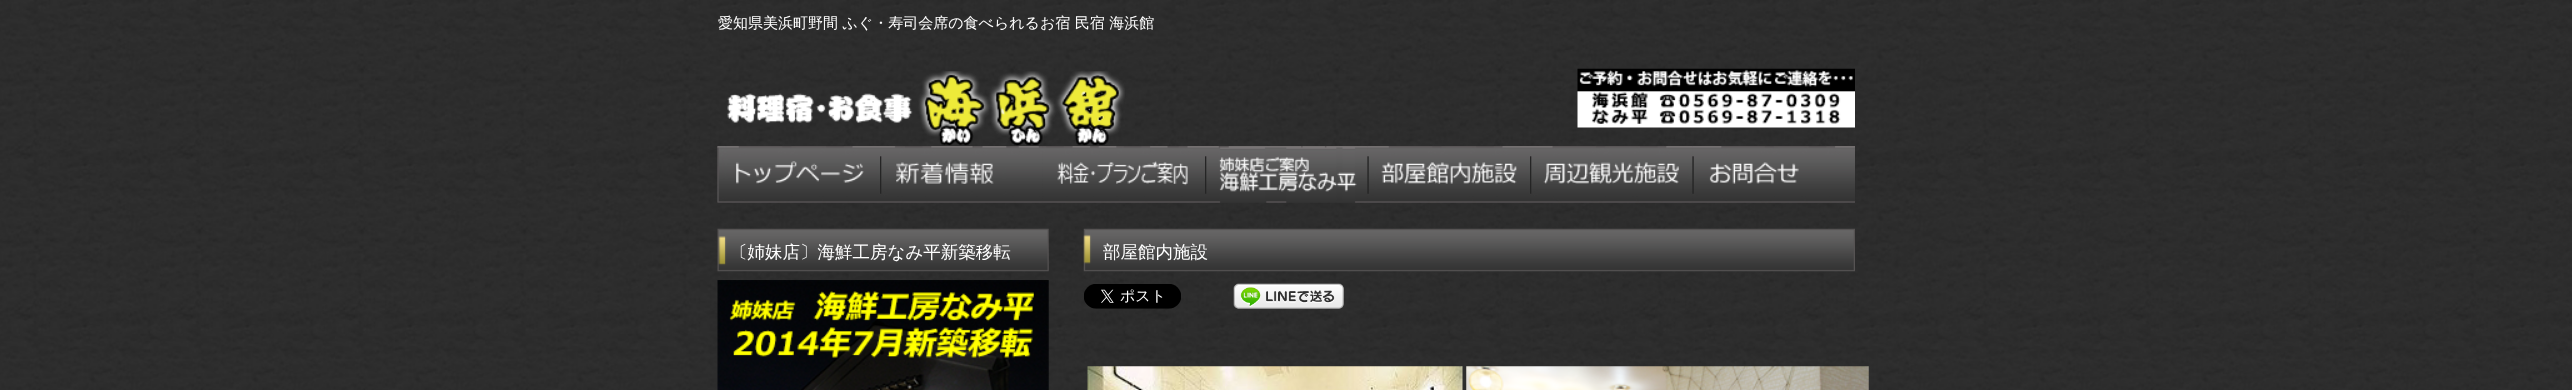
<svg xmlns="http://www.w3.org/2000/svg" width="2572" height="390">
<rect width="100%" height="100%" fill="#fff"/>
<image x="0" y="0" width="2572" height="390" href="media/1.png"/>
<image x="1577" y="68" width="278" height="60" href="media/2.png"/>
<text x="718" y="28" style="font-family:WenQuanYi Zen Hei;font-size:15px;font-weight:500;fill:#fff">愛知県美浜町野間 ふぐ・寿司会席の食べられるお宿 民宿 海浜館</text>
<image x="727" y="71" width="398" height="75" href="media/3.png"/>
<image x="717" y="146" width="1138" height="57" href="media/4.png"/>
<image x="717" y="146" width="163" height="57" href="media/5.png"/>
<image x="880" y="146" width="163" height="57" href="media/6.png"/>
<image x="1042" y="146" width="163" height="57" href="media/7.png"/>
<image x="1205" y="146" width="163" height="57" href="media/8.png"/>
<image x="1367" y="146" width="163" height="57" href="media/9.png"/>
<image x="1530" y="146" width="163" height="57" href="media/10.png"/>
<image x="1692" y="146" width="163" height="57" href="media/11.png"/>
<image x="717" y="228" width="332" height="44" href="media/12.png"/>
<text x="730" y="258" style="font-family:WenQuanYi Zen Hei;font-size:17.5px;font-weight:500;fill:#fff">〔姉妹店〕海鮮工房なみ平新築移転</text>
<image x="717" y="280" width="332" height="110" href="media/13.png"/>
<image x="1083" y="228" width="772" height="44" href="media/14.png"/>
<text x="1103" y="258" style="font-family:WenQuanYi Zen Hei;font-size:17.5px;font-weight:500;fill:#fff">部屋館内施設</text>
<image x="1084" y="284" width="97" height="25" href="media/15.png"/>
<image x="1233" y="283" width="111" height="26" href="media/16.png"/>
<image x="1087" y="366" width="376" height="24" href="media/17.png"/>
<image x="1466" y="366" width="403" height="24" href="media/18.png"/>
</svg>
